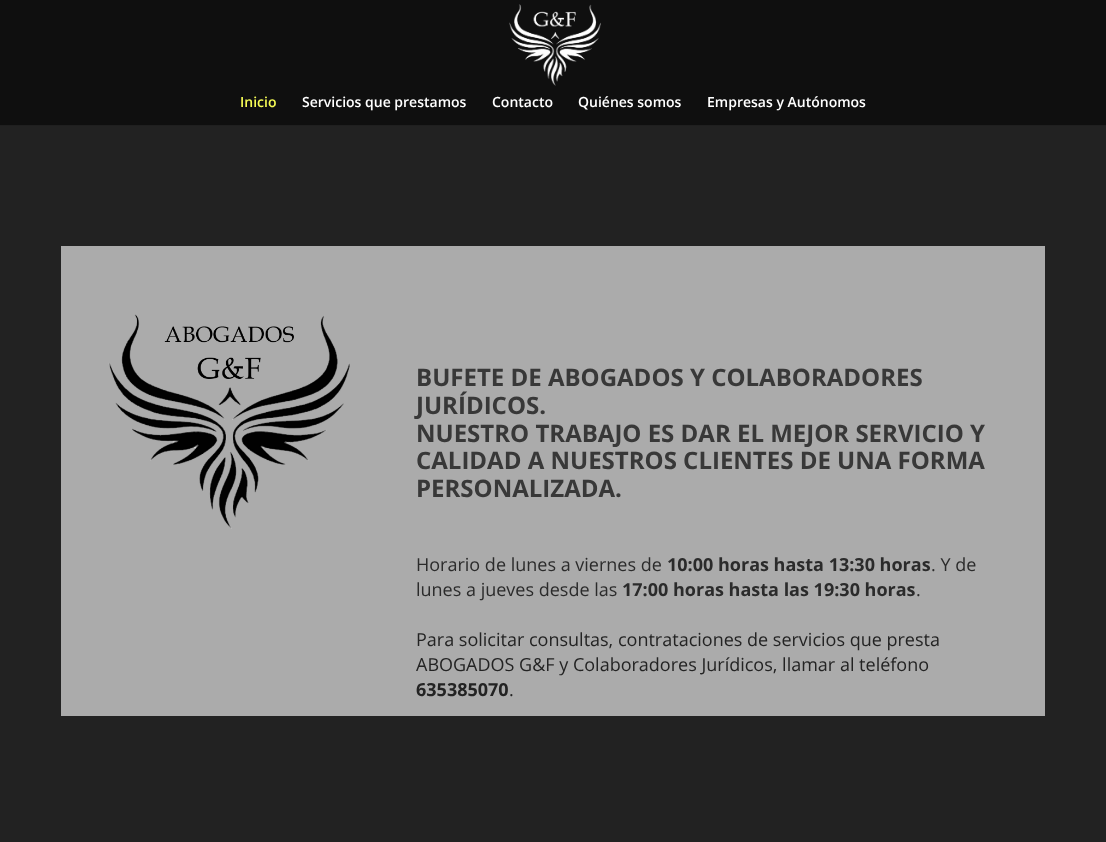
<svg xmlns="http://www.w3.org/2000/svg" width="1106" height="842">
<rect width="100%" height="100%" fill="#222"/>
<rect y="125" width="1106" height="1" fill="#1f1f1f"/>
<rect width="1106" height="125" fill="#0f0f0f"/>
<image x="509" y="4" width="92" height="82" href="media/1.png"/>
<text x="240" y="107" style="font-family:Open Sans;font-size:14px;font-weight:600;fill:#f6fc55">Inicio</text>
<text x="302" y="107" style="font-family:Open Sans;font-size:14px;font-weight:600;fill:#fff">Servicios que prestamos</text>
<text x="492" y="107" style="font-family:Open Sans;font-size:14px;font-weight:600;fill:#fff">Contacto</text>
<text x="578" y="107" style="font-family:Open Sans;font-size:14px;font-weight:600;fill:#fff">Quiénes somos</text>
<text x="707" y="107" style="font-family:Open Sans;font-size:14px;font-weight:600;fill:#fff">Empresas y Autónomos</text>
<rect x="61" y="246" width="984" height="470" fill="#ababab"/>
<image x="108" y="314" width="242" height="215" href="media/2.png"/>
<text x="416" y="386" style="font-family:Open Sans;font-size:24px;font-weight:bold;fill:#383838">BUFETE DE ABOGADOS Y COLABORADORES</text>
<text x="416" y="414" style="font-family:Open Sans;font-size:24px;font-weight:bold;fill:#383838">JURÍDICOS.</text>
<text x="416" y="442" style="font-family:Open Sans;font-size:24px;font-weight:bold;fill:#383838">NUESTRO TRABAJO ES DAR EL MEJOR SERVICIO Y</text>
<text x="416" y="469" style="font-family:Open Sans;font-size:24px;font-weight:bold;fill:#383838">CALIDAD A NUESTROS CLIENTES DE UNA FORMA</text>
<text x="416" y="497" style="font-family:Open Sans;font-size:24px;font-weight:bold;fill:#383838">PERSONALIZADA.</text>
<text x="416" y="571" style="font-family:Open Sans;font-size:18px;fill:#2b2b2b">Horario de lunes a viernes de</text>
<text x="667" y="571" style="font-family:Open Sans;font-size:18px;font-weight:bold;fill:#2b2b2b">10:00 horas hasta 13:30 horas</text>
<text x="931" y="571" style="font-family:Open Sans;font-size:18px;fill:#2b2b2b">. Y de</text>
<text x="416" y="596" style="font-family:Open Sans;font-size:18px;fill:#2b2b2b">lunes a jueves desde las</text>
<text x="622" y="596" style="font-family:Open Sans;font-size:18px;font-weight:bold;fill:#2b2b2b">17:00 horas hasta las 19:30 horas</text>
<text x="916" y="596" style="font-family:Open Sans;font-size:18px;fill:#2b2b2b">.</text>
<text x="416" y="646" style="font-family:Open Sans;font-size:18px;fill:#232323">Para solicitar consultas, contrataciones de servicios que presta</text>
<text x="416" y="671" style="font-family:Open Sans;font-size:18px;fill:#232323">ABOGADOS G&amp;F y Colaboradores Jurídicos, llamar al teléfono</text>
<text x="416" y="696" style="font-family:Open Sans;font-size:18px;font-weight:bold;fill:#232323">635385070</text>
<text x="509" y="696" style="font-family:Open Sans;font-size:18px;fill:#232323">.</text>
</svg>
